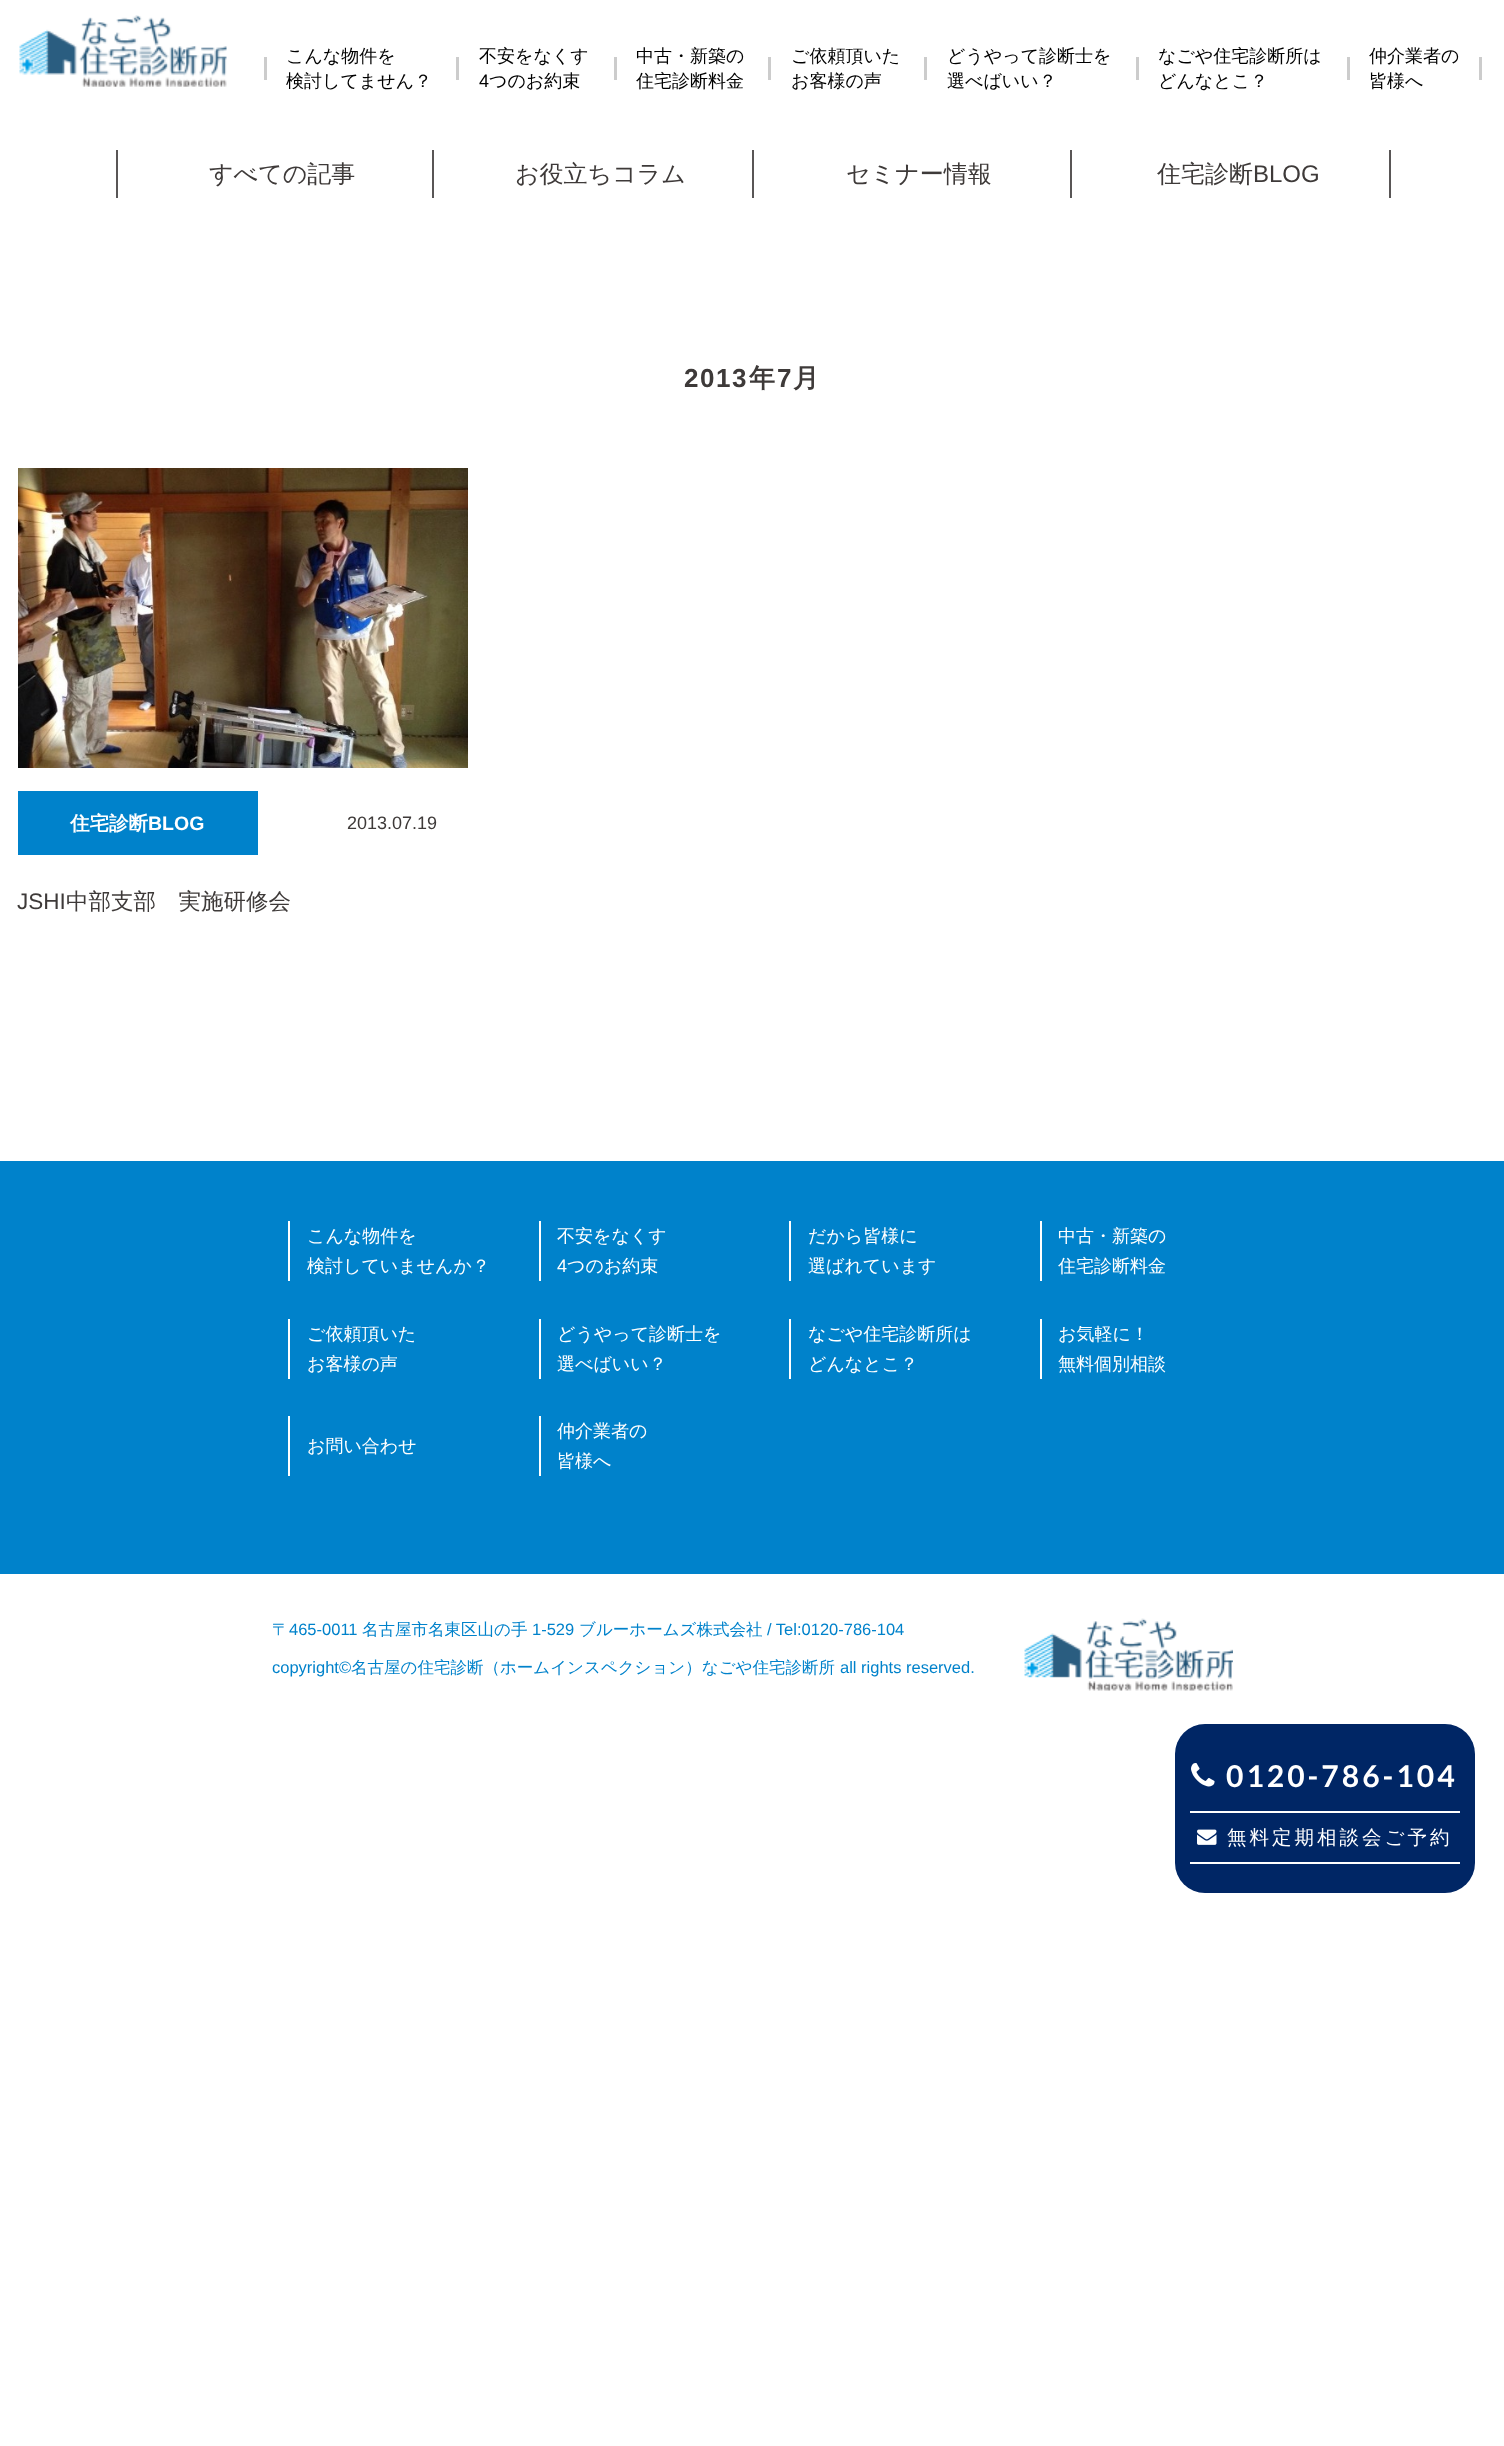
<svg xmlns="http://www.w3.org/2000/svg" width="1504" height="2446">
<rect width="100%" height="100%" fill="#fff"/>
<image x="19" y="15" width="208" height="72" href="media/1.png"/>
<rect x="264" y="57" width="3" height="23" fill="#ccc"/>
<text x="286" y="62" style="font-family:WenQuanYi Zen Hei;font-size:18px;font-weight:500;fill:#000">こんな物件を</text>
<text x="286" y="87" style="font-family:WenQuanYi Zen Hei;font-size:18px;font-weight:500;fill:#000">検討してません？</text>
<rect x="456" y="57" width="3" height="23" fill="#ccc"/>
<text x="479" y="62" style="font-family:WenQuanYi Zen Hei;font-size:18px;font-weight:500;fill:#000">不安をなくす</text>
<text x="479" y="87" style="font-family:Liberation Sans;font-size:18px;fill:#000">4</text>
<text x="489" y="87" style="font-family:WenQuanYi Zen Hei;font-size:18px;font-weight:500;fill:#000">つのお約束</text>
<rect x="614" y="57" width="3" height="23" fill="#ccc"/>
<text x="636" y="62" style="font-family:WenQuanYi Zen Hei;font-size:18px;font-weight:500;fill:#000">中古・新築の</text>
<text x="636" y="87" style="font-family:WenQuanYi Zen Hei;font-size:18px;font-weight:500;fill:#000">住宅診断料金</text>
<rect x="768" y="57" width="3" height="23" fill="#ccc"/>
<text x="791" y="62" style="font-family:WenQuanYi Zen Hei;font-size:18px;font-weight:500;fill:#000">ご依頼頂いた</text>
<text x="791" y="87" style="font-family:WenQuanYi Zen Hei;font-size:18px;font-weight:500;fill:#000">お客様の声</text>
<rect x="924" y="57" width="3" height="23" fill="#ccc"/>
<text x="947" y="62" style="font-family:WenQuanYi Zen Hei;font-size:18px;font-weight:500;fill:#000">どうやって診断士を</text>
<text x="947" y="87" style="font-family:WenQuanYi Zen Hei;font-size:18px;font-weight:500;fill:#000">選べばいい？</text>
<rect x="1136" y="57" width="3" height="23" fill="#ccc"/>
<text x="1158" y="62" style="font-family:WenQuanYi Zen Hei;font-size:18px;font-weight:500;fill:#000">なごや住宅診断所は</text>
<text x="1158" y="87" style="font-family:WenQuanYi Zen Hei;font-size:18px;font-weight:500;fill:#000">どんなとこ？</text>
<rect x="1347" y="57" width="3" height="23" fill="#ccc"/>
<text x="1369" y="62" style="font-family:WenQuanYi Zen Hei;font-size:18px;font-weight:500;fill:#000">仲介業者の</text>
<text x="1369" y="87" style="font-family:WenQuanYi Zen Hei;font-size:18px;font-weight:500;fill:#000">皆様へ</text>
<rect x="1479" y="57" width="3" height="23" fill="#ccc"/>
<rect x="116" y="150" width="2" height="48" fill="#595656"/>
<text x="209" y="182" style="font-family:WenQuanYi Zen Hei;font-size:24px;font-weight:500;fill:#3e3a39">すべての記事</text>
<rect x="432" y="150" width="2" height="48" fill="#595656"/>
<text x="515" y="182" style="font-family:WenQuanYi Zen Hei;font-size:24px;font-weight:500;fill:#3e3a39">お役立ちコラム</text>
<rect x="752" y="150" width="2" height="48" fill="#595656"/>
<text x="846" y="182" style="font-family:WenQuanYi Zen Hei;font-size:24px;font-weight:500;fill:#3e3a39">セミナー情報</text>
<rect x="1070" y="150" width="2" height="48" fill="#595656"/>
<text x="1157" y="182" style="font-family:WenQuanYi Zen Hei;font-size:24px;font-weight:500;fill:#3e3a39">住宅診断</text>
<text x="1253" y="182" style="font-family:Liberation Sans;font-size:24px;fill:#3e3a39">BLOG</text>
<rect x="1389" y="150" width="2" height="48" fill="#595656"/>
<text x="684" y="387" style="font-family:Liberation Sans;font-size:26px;font-weight:bold;letter-spacing:1.5px;fill:#3e3a39">2013</text>
<text x="749" y="387" style="font-family:WenQuanYi Zen Hei;font-size:26px;font-weight:bold;letter-spacing:1.5px;fill:#3e3a39">年</text>
<text x="777" y="387" style="font-family:Liberation Sans;font-size:26px;font-weight:bold;letter-spacing:1.5px;fill:#3e3a39">7</text>
<text x="793" y="387" style="font-family:WenQuanYi Zen Hei;font-size:26px;font-weight:bold;letter-spacing:1.5px;fill:#3e3a39">月</text>
<image x="18" y="468" width="450" height="300" href="media/2.png"/>
<rect x="18" y="791" width="240" height="64" fill="#0082cb"/>
<text x="70" y="830" style="font-family:WenQuanYi Zen Hei;font-size:19.5px;font-weight:bold;fill:#fff">住宅診断</text>
<text x="148" y="830" style="font-family:Liberation Sans;font-size:19.5px;font-weight:bold;fill:#fff">BLOG</text>
<text x="347" y="829" style="font-family:Liberation Sans;font-size:18px;fill:#3e3a39">2013.07.19</text>
<text x="17" y="909" style="font-family:Liberation Sans;font-size:22.5px;fill:#3e3a39">JSHI</text>
<text x="66" y="909" style="font-family:WenQuanYi Zen Hei;font-size:22.5px;font-weight:500;fill:#3e3a39">中部支部　実施研修会</text>
<rect y="1161" width="1504" height="413" fill="#0082cb"/>
<rect x="288" y="1221" width="2" height="60" fill="#fff"/>
<text x="307" y="1242" style="font-family:WenQuanYi Zen Hei;font-size:18px;font-weight:500;fill:#fff">こんな物件を</text>
<text x="307" y="1272" style="font-family:WenQuanYi Zen Hei;font-size:18px;font-weight:500;fill:#fff">検討していませんか？</text>
<rect x="539" y="1221" width="2" height="60" fill="#fff"/>
<text x="557" y="1242" style="font-family:WenQuanYi Zen Hei;font-size:18px;font-weight:500;fill:#fff">不安をなくす</text>
<text x="557" y="1272" style="font-family:Liberation Sans;font-size:18px;fill:#fff">4</text>
<text x="567" y="1272" style="font-family:WenQuanYi Zen Hei;font-size:18px;font-weight:500;fill:#fff">つのお約束</text>
<rect x="789" y="1221" width="2" height="60" fill="#fff"/>
<text x="808" y="1242" style="font-family:WenQuanYi Zen Hei;font-size:18px;font-weight:500;fill:#fff">だから皆様に</text>
<text x="808" y="1272" style="font-family:WenQuanYi Zen Hei;font-size:18px;font-weight:500;fill:#fff">選ばれています</text>
<rect x="1040" y="1221" width="2" height="60" fill="#fff"/>
<text x="1058" y="1242" style="font-family:WenQuanYi Zen Hei;font-size:18px;font-weight:500;fill:#fff">中古・新築の</text>
<text x="1058" y="1272" style="font-family:WenQuanYi Zen Hei;font-size:18px;font-weight:500;fill:#fff">住宅診断料金</text>
<rect x="288" y="1319" width="2" height="60" fill="#fff"/>
<text x="307" y="1340" style="font-family:WenQuanYi Zen Hei;font-size:18px;font-weight:500;fill:#fff">ご依頼頂いた</text>
<text x="307" y="1370" style="font-family:WenQuanYi Zen Hei;font-size:18px;font-weight:500;fill:#fff">お客様の声</text>
<rect x="539" y="1319" width="2" height="60" fill="#fff"/>
<text x="557" y="1340" style="font-family:WenQuanYi Zen Hei;font-size:18px;font-weight:500;fill:#fff">どうやって診断士を</text>
<text x="557" y="1370" style="font-family:WenQuanYi Zen Hei;font-size:18px;font-weight:500;fill:#fff">選べばいい？</text>
<rect x="789" y="1319" width="2" height="60" fill="#fff"/>
<text x="808" y="1340" style="font-family:WenQuanYi Zen Hei;font-size:18px;font-weight:500;fill:#fff">なごや住宅診断所は</text>
<text x="808" y="1370" style="font-family:WenQuanYi Zen Hei;font-size:18px;font-weight:500;fill:#fff">どんなとこ？</text>
<rect x="1040" y="1319" width="2" height="60" fill="#fff"/>
<text x="1058" y="1340" style="font-family:WenQuanYi Zen Hei;font-size:18px;font-weight:500;fill:#fff">お気軽に！</text>
<text x="1058" y="1370" style="font-family:WenQuanYi Zen Hei;font-size:18px;font-weight:500;fill:#fff">無料個別相談</text>
<rect x="288" y="1416" width="2" height="60" fill="#fff"/>
<text x="307" y="1452" style="font-family:WenQuanYi Zen Hei;font-size:18px;font-weight:500;fill:#fff">お問い合わせ</text>
<rect x="539" y="1416" width="2" height="60" fill="#fff"/>
<text x="557" y="1437" style="font-family:WenQuanYi Zen Hei;font-size:18px;font-weight:500;fill:#fff">仲介業者の</text>
<text x="557" y="1467" style="font-family:WenQuanYi Zen Hei;font-size:18px;font-weight:500;fill:#fff">皆様へ</text>
<text x="272" y="1635" style="font-family:WenQuanYi Zen Hei;font-size:16.5px;font-weight:500;fill:#0082cb">〒</text>
<text x="289" y="1635" style="font-family:Liberation Sans;font-size:16.5px;fill:#0082cb">465-0011</text>
<text x="362" y="1635" style="font-family:WenQuanYi Zen Hei;font-size:16.5px;font-weight:500;fill:#0082cb">名古屋市名東区山の手</text>
<text x="532" y="1635" style="font-family:Liberation Sans;font-size:16.5px;fill:#0082cb">1-529</text>
<text x="579" y="1635" style="font-family:WenQuanYi Zen Hei;font-size:16.5px;font-weight:500;fill:#0082cb">ブルーホームズ株式会社</text>
<text x="767" y="1635" style="font-family:Liberation Sans;font-size:16.5px;fill:#0082cb">/ Tel:0120-786-104</text>
<text x="272" y="1673" style="font-family:Liberation Sans;font-size:16.5px;fill:#0082cb">copyright©</text>
<text x="351" y="1673" style="font-family:WenQuanYi Zen Hei;font-size:16.5px;font-weight:500;fill:#0082cb">名古屋の住宅診断（ホームインスペクション）なごや住宅診断所</text>
<text x="840" y="1673" style="font-family:Liberation Sans;font-size:16.5px;fill:#0082cb">all rights reserved.</text>
<image x="1024" y="1618" width="209" height="73" href="media/3.png"/>
<rect x="1175" y="1724" width="300" height="169" rx="30" fill="#002665"/>
<image x="1191" y="1763" width="24" height="24" href="media/4.png"/>
<text x="1226" y="1787" style="font-family:Lato;font-size:30px;font-weight:bold;letter-spacing:3px;fill:#fff">0120-786-104</text>
<rect x="1190" y="1811" width="270" height="2" fill="#fff"/>
<rect x="1190" y="1862" width="270" height="2" fill="#fff"/>
<image x="1197" y="1829" width="20" height="16" href="media/5.png"/>
<text x="1227" y="1844" style="font-family:WenQuanYi Zen Hei;font-size:19.5px;font-weight:500;letter-spacing:3px;fill:#fff">無料定期相談会ご予約</text>
</svg>
